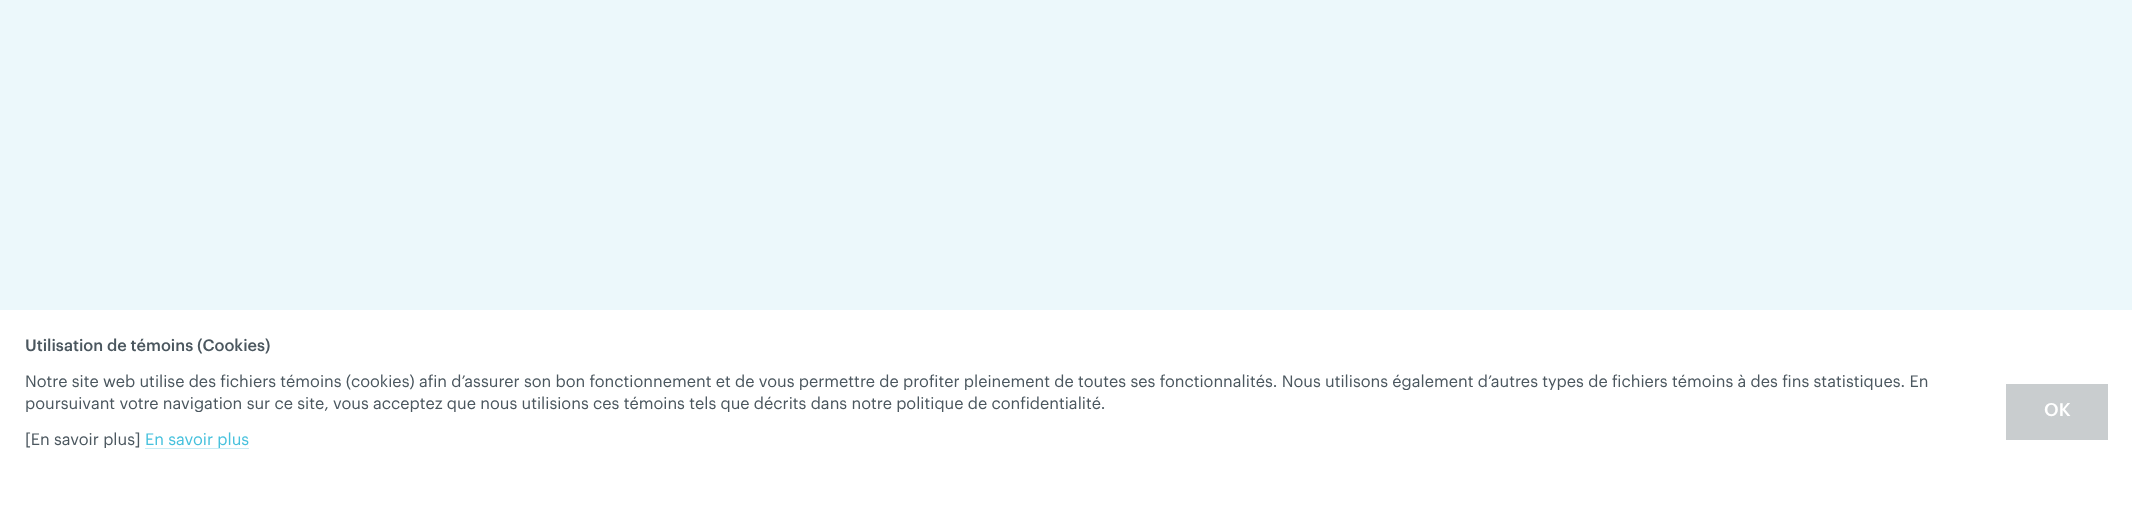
<svg xmlns="http://www.w3.org/2000/svg" width="2132" height="513">
<rect width="100%" height="100%" fill="#ecf8fb"/>
<rect y="310" width="2132" height="203" fill="#fff"/>
<text x="25" y="351" style="font-family:Graphik;font-size:16.25px;font-weight:500;fill:#4b575f">Utilisation de témoins (Cookies)</text>
<text x="25" y="387" style="font-family:Graphik;font-size:16.25px;fill:#4b575f">Notre site web utilise des fichiers témoins (cookies) afin d’assurer son bon fonctionnement et de vous permettre de profiter pleinement de toutes ses fonctionnalités. Nous utilisons également d’autres types de fichiers témoins à des fins statistiques. En</text>
<text x="25" y="409" style="font-family:Graphik;font-size:16.25px;fill:#4b575f">poursuivant votre navigation sur ce site, vous acceptez que nous utilisions ces témoins tels que décrits dans notre politique de confidentialité.</text>
<text x="25" y="445" style="font-family:Graphik;font-size:16.25px;fill:#4b575f">[En savoir plus]</text>
<text x="145" y="445" style="font-family:Graphik;font-size:16.25px;fill:#46c1dd">En savoir plus</text>
<rect x="145" y="448" width="104" height="1" fill="#c8ecf5"/>
<rect x="2006" y="384" width="102" height="56" fill="#c9cdcf"/>
<text x="2044" y="416" style="font-family:Graphik;font-size:18px;font-weight:500;fill:#fff">OK</text>
</svg>
